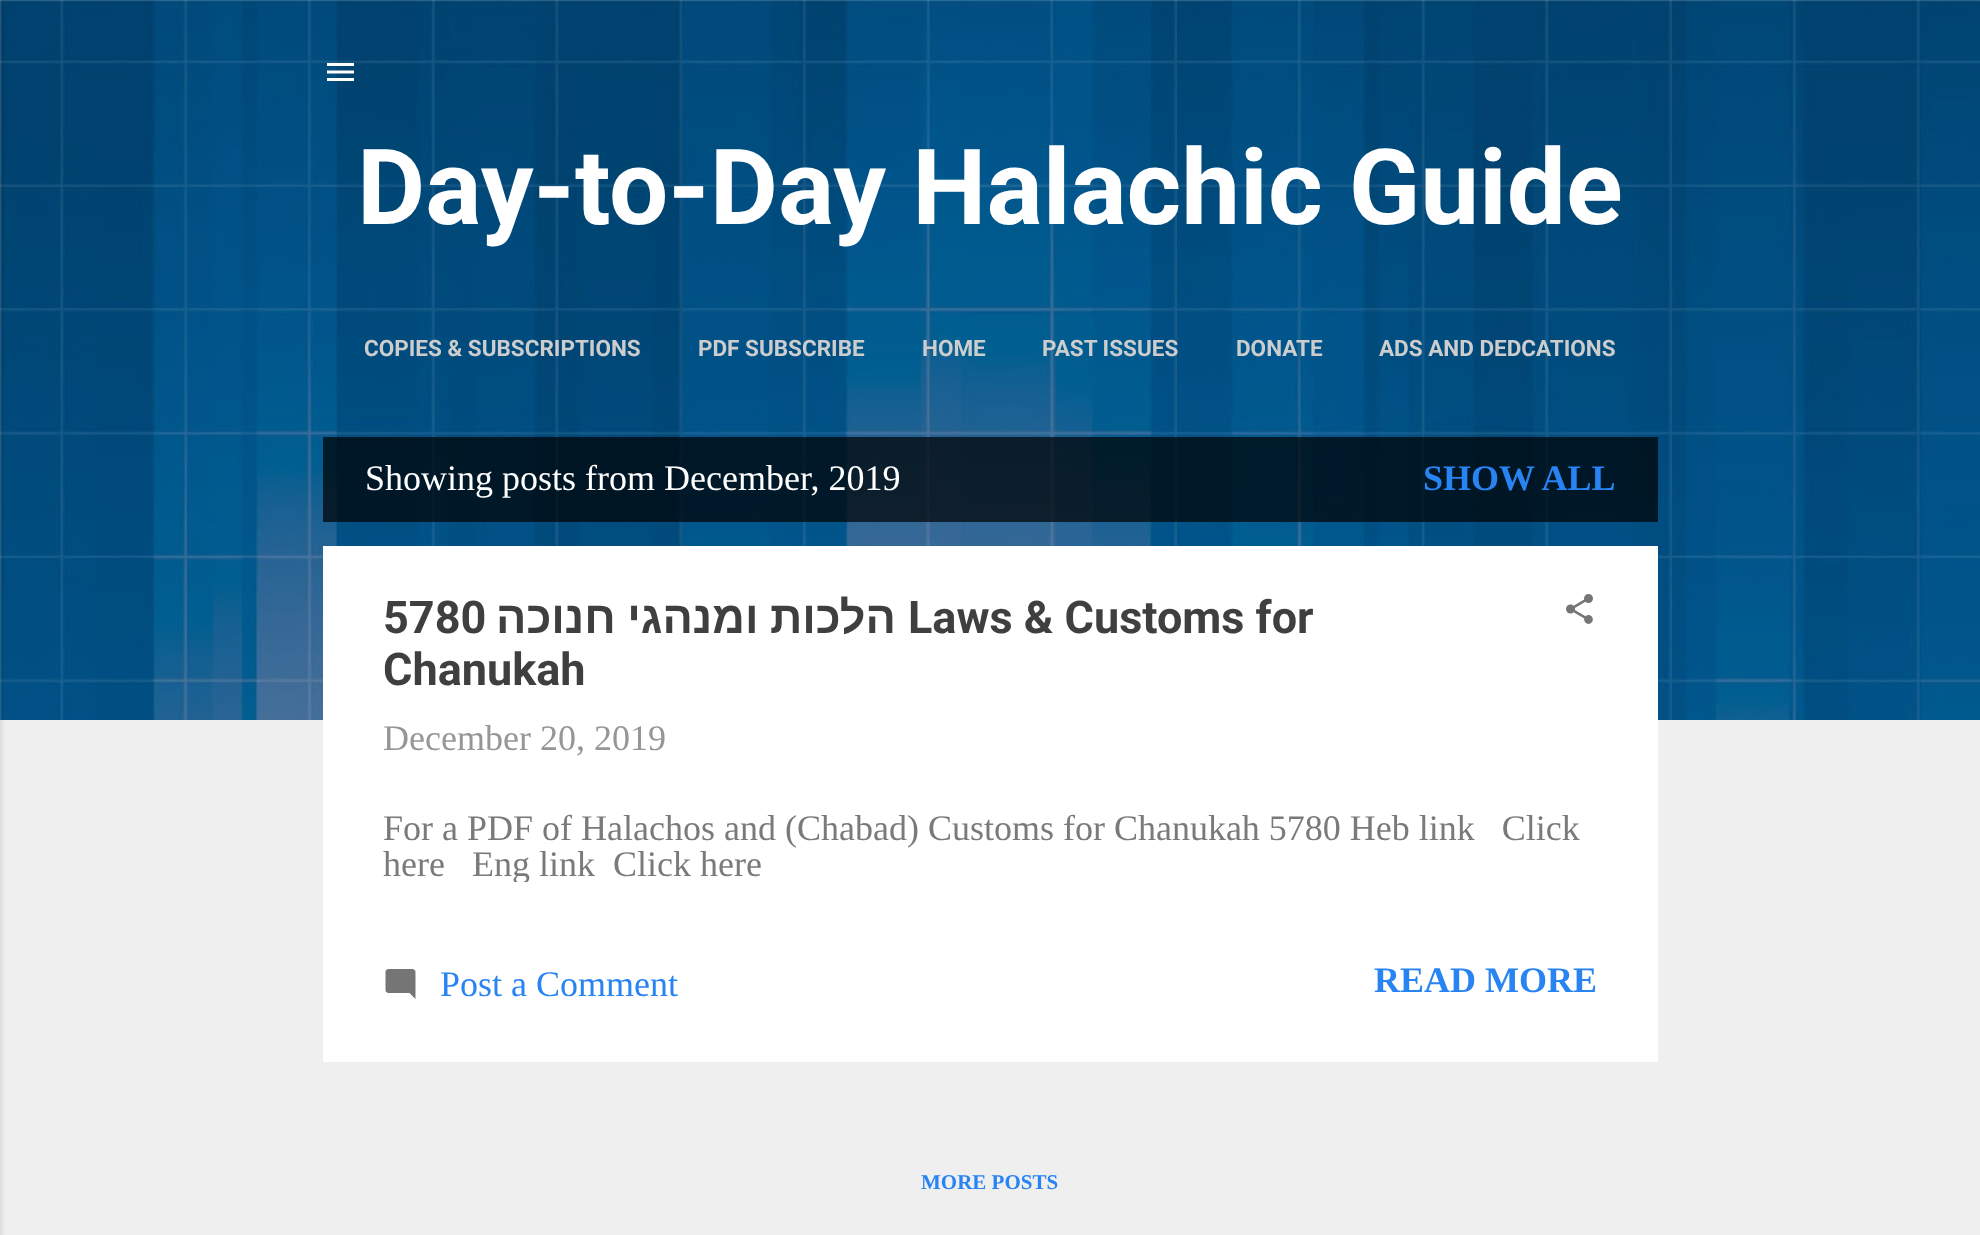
<svg xmlns="http://www.w3.org/2000/svg" width="1980" height="1235">
<defs>
<clipPath id="clip1"><rect x="383" y="810" width="1215" height="72"/></clipPath>
</defs>
<rect width="100%" height="100%" fill="#efefef"/>
<image x="0" y="0" width="1980" height="720" href="media/1.png"/>
<rect x="-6" y="2" width="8" height="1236" fill="#0000001a" filter="blur(2px)"/>
<image x="327" y="63" width="27" height="18" href="media/2.png"/>
<text x="357" y="224" style="font-family:Roboto;font-size:105px;font-weight:bold;fill:#fff">Day-to-Day Halachic Guide</text>
<text x="364" y="356" style="font-family:Roboto;font-size:22.5px;font-weight:bold;fill:#cdcdcd">COPIES &amp; SUBSCRIPTIONS</text>
<text x="698" y="356" style="font-family:Roboto;font-size:22.5px;font-weight:bold;fill:#cdcdcd">PDF SUBSCRIBE</text>
<text x="922" y="356" style="font-family:Roboto;font-size:22.5px;font-weight:bold;fill:#cdcdcd">HOME</text>
<text x="1042" y="356" style="font-family:Roboto;font-size:22.5px;font-weight:bold;fill:#cdcdcd">PAST ISSUES</text>
<text x="1236" y="356" style="font-family:Roboto;font-size:22.5px;font-weight:bold;fill:#cdcdcd">DONATE</text>
<text x="1379" y="356" style="font-family:Roboto;font-size:22.5px;font-weight:bold;fill:#cdcdcd">ADS AND DEDCATIONS</text>
<rect x="323" y="437" width="1335" height="85" fill="#000000b3"/>
<text x="365" y="490" style="font-family:Liberation Serif;font-size:36px;fill:#fff">Showing posts from December, 2019</text>
<text x="1423" y="490" style="font-family:Liberation Serif;font-size:36px;font-weight:bold;fill:#2883f3">SHOW ALL</text>
<rect x="323" y="546" width="1335" height="516" fill="#fff"/>
<text x="383" y="633" style="font-family:Roboto;font-size:45px;font-weight:bold;fill:#3f3f3f">5780</text>
<text x="896" y="633" word-spacing="-1" style="font-family:Liberation Sans;font-size:45px;font-weight:bold;direction:rtl;fill:#3f3f3f">הלכות ומנהגי חנוכה</text>
<text x="908" y="633" style="font-family:Roboto;font-size:45px;font-weight:bold;fill:#3f3f3f">Laws &amp; Customs for</text>
<text x="383" y="685" style="font-family:Roboto;font-size:45px;font-weight:bold;fill:#3f3f3f">Chanukah</text>
<image x="1566" y="594" width="27" height="30" href="media/3.png"/>
<text x="383" y="750" style="font-family:Liberation Serif;font-size:36px;fill:#969696">December 20, 2019</text>
<text x="383" y="840" style="font-family:Liberation Serif;font-size:36px;fill:#7a7a7a" xml:space="preserve">For a PDF of Halachos and (Chabad) Customs for Chanukah 5780 Heb link   Click</text>
<g clip-path="url(#clip1)">
<text x="383" y="876" style="font-family:Liberation Serif;font-size:36px;fill:#7a7a7a" xml:space="preserve">here   Eng link  Click here</text>
</g>
<image x="385" y="969" width="31" height="30" href="media/4.png"/>
<text x="440" y="996" style="font-family:Liberation Serif;font-size:36px;fill:#2883f3">Post a Comment</text>
<text x="1374" y="992" style="font-family:Liberation Serif;font-size:36px;font-weight:bold;fill:#2883f3">READ MORE</text>
<text x="921" y="1189" style="font-family:Liberation Serif;font-size:21px;font-weight:bold;fill:#2883f3">MORE POSTS</text>
</svg>
